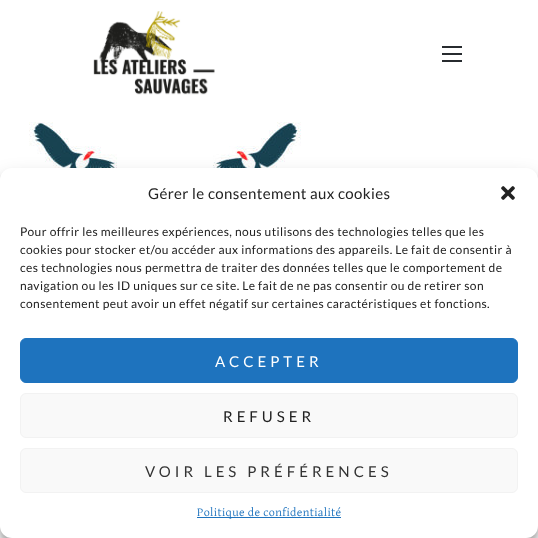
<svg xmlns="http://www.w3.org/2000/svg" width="538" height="538">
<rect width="100%" height="100%" fill="#fff"/>
<image x="93" y="11" width="122" height="84" href="media/1.png"/>
<rect x="442" y="53" width="20" height="2" fill="#272b2f"/>
<rect x="442" y="46" width="20" height="2" fill="#272b2f"/>
<rect x="442" y="60" width="20" height="2" fill="#272b2f"/>
<image x="29" y="122" width="272" height="46" href="media/2.png"/>
<rect y="174" width="538" height="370" rx="12" fill="#0000003b" filter="blur(3px)"/>
<rect y="178" width="538" height="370" rx="12" fill="#00000030" filter="blur(10px)"/>
<rect x="468" y="464" width="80" height="60" rx="2" fill="#808080" filter="blur(2.5px)"/>
<rect y="168" width="538" height="370" rx="12" fill="#fff"/>
<text x="148" y="199" style="font-family:Lato;font-size:15px;letter-spacing:0.4px;fill:#222">Gérer le consentement aux cookies</text>
<image x="501" y="186" width="14" height="14" href="media/3.png"/>
<text x="20" y="236" style="font-family:Lato;font-size:12px;letter-spacing:0.4px;fill:#222">Pour offrir les meilleures expériences, nous utilisons des technologies telles que les</text>
<text x="20" y="254" style="font-family:Lato;font-size:12px;letter-spacing:0.4px;fill:#222">cookies pour stocker et/ou accéder aux informations des appareils. Le fait de consentir à</text>
<text x="20" y="272" style="font-family:Lato;font-size:12px;letter-spacing:0.4px;fill:#222">ces technologies nous permettra de traiter des données telles que le comportement de</text>
<text x="20" y="290" style="font-family:Lato;font-size:12px;letter-spacing:0.4px;fill:#222">navigation ou les ID uniques sur ce site. Le fait de ne pas consentir ou de retirer son</text>
<text x="20" y="308" style="font-family:Lato;font-size:12px;letter-spacing:0.4px;fill:#222">consentement peut avoir un effet négatif sur certaines caractéristiques et fonctions.</text>
<rect x="20.5" y="338.5" width="497" height="44" rx="5.5" fill="#1e73be" stroke="#1e73be"/>
<text x="215" y="367" style="font-family:Lato;font-size:15px;letter-spacing:4px;fill:#fff">ACCEPTER</text>
<rect x="20.5" y="393.5" width="497" height="44" rx="5.5" fill="#f9f9f9" stroke="#f2f2f2"/>
<text x="223" y="422" style="font-family:Lato;font-size:15px;letter-spacing:4px;fill:#222">REFUSER</text>
<rect x="20.5" y="448.5" width="497" height="44" rx="5.5" fill="#f9f9f9" stroke="#f2f2f2"/>
<text x="145" y="477" style="font-family:Lato;font-size:15px;letter-spacing:4px;fill:#333">VOIR LES PRÉFÉRENCES</text>
<rect x="197" y="517" width="144" height="1" fill="#1e73be"/>
<text x="197" y="516" style="font-family:David Libre;font-size:12px;letter-spacing:0.4px;fill:#1e73be">Politique de confidentialité</text>
</svg>
